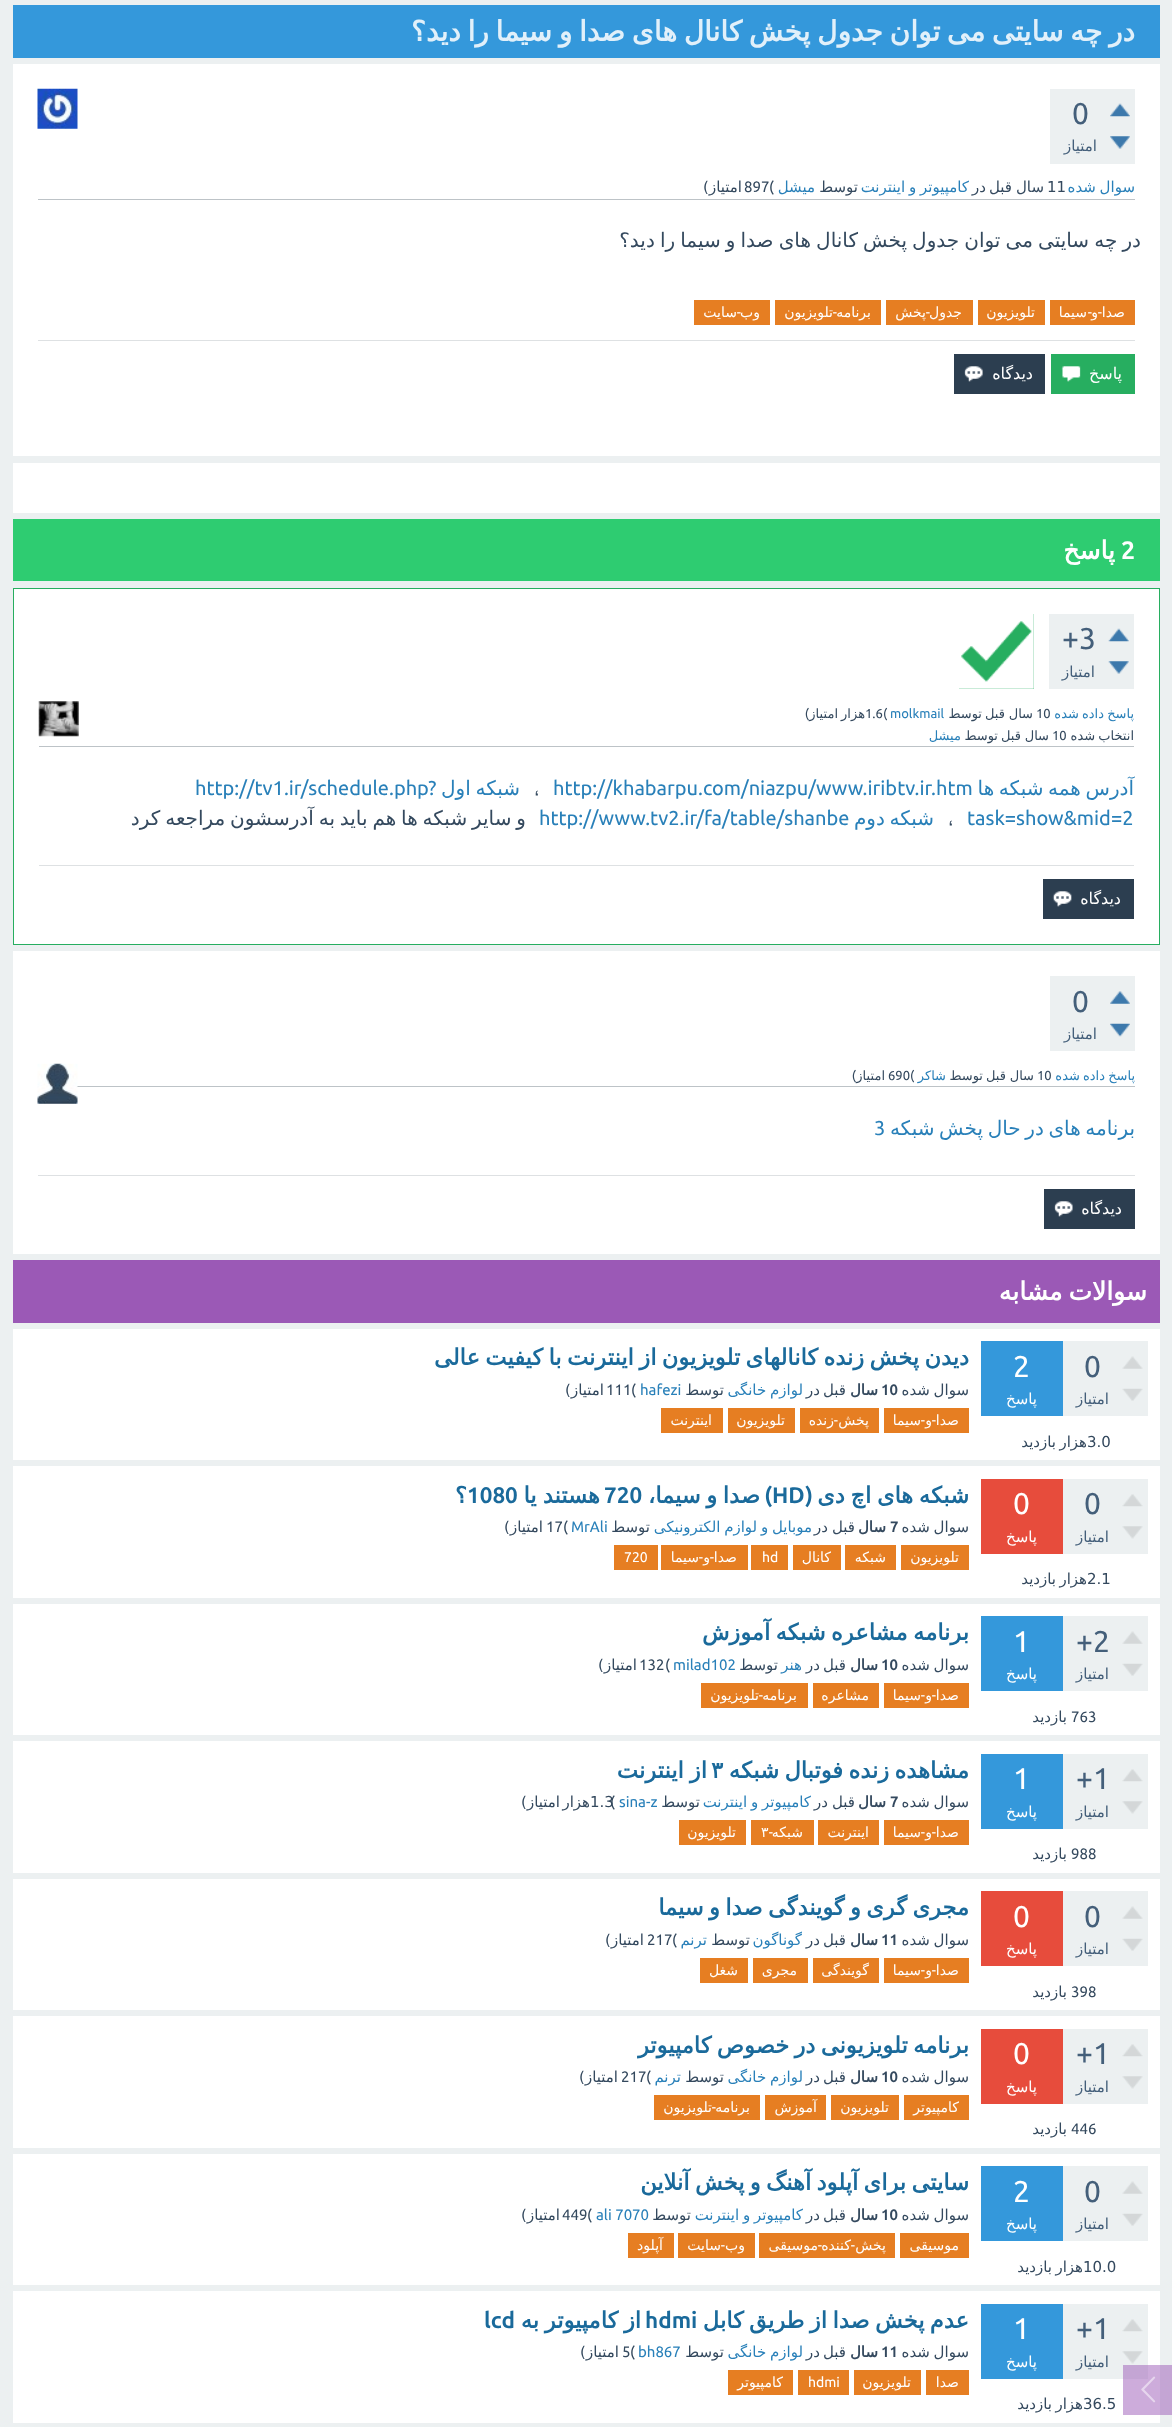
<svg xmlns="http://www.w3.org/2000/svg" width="1172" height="2427">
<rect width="100%" height="100%" fill="#ecf0f1"/>
<rect x="1160" y="2365" width="12" height="50" fill="#c4a5d4"/>
<rect x="13" y="2291" width="1147" height="132" fill="#fff"/>
<rect x="1123" y="2365" width="37" height="50" fill="#cdacdb"/>
<rect x="1063" y="2304" width="85" height="75" fill="#ecf0f1"/>
<rect x="1123" y="2365" width="25" height="14" fill="#c4a5d4"/>
<image x="1141" y="2376" width="15" height="27" href="media/1.png"/>
<rect x="13" y="5" width="1147" height="53" fill="#3498db"/>
<text x="1135" y="41" word-spacing="-2.25" style="font-family:DejaVu Sans;font-size:28px;font-weight:bold;direction:rtl;fill:#e1f0fa">در چه سایتی می توان جدول پخش کانال های صدا و سیما را دید؟</text>
<rect x="13" y="64" width="1147" height="392" fill="#fff"/>
<rect x="1050" y="89" width="85" height="75" fill="#ecf0f1"/>
<image x="1110" y="103" width="20" height="14" href="media/2.png"/>
<image x="1110" y="136" width="20" height="13" href="media/3.png"/>
<text x="1072" y="124" style="font-family:Ubuntu;font-size:30px;fill:#445f7a">0</text>
<text x="1097" y="151" style="font-family:DejaVu Sans;font-size:15px;direction:rtl;fill:#445f7a">امتیاز</text>
<image x="37" y="88" width="41" height="41" href="media/4.png"/>
<rect x="38" y="199" width="1097" height="1" fill="#bdc3c7"/>
<text x="1135" y="192" word-spacing="-1" style="font-family:DejaVu Sans;font-size:15px;direction:rtl;fill:#2980b9">سوال شده</text>
<text x="1047" y="192" style="font-family:DejaVu Sans;font-size:15px;fill:#34495e">11</text>
<text x="1044" y="192" style="font-family:DejaVu Sans;font-size:15px;direction:rtl;fill:#34495e">سال</text>
<text x="1012" y="192" style="font-family:DejaVu Sans;font-size:15px;direction:rtl;fill:#34495e">قبل</text>
<text x="986" y="192" style="font-family:DejaVu Sans;font-size:15px;direction:rtl;fill:#34495e">در</text>
<text x="969" y="192" word-spacing="-1" style="font-family:DejaVu Sans;font-size:15px;direction:rtl;fill:#2980b9">کامپیوتر و اینترنت</text>
<text x="858" y="192" style="font-family:DejaVu Sans;font-size:15px;direction:rtl;fill:#34495e">توسط</text>
<text x="815" y="192" style="font-family:DejaVu Sans;font-size:15px;direction:rtl;fill:#2980b9">میشل</text>
<text x="769" y="192" style="font-family:Ubuntu;font-size:15px;fill:#34495e">(</text>
<text x="744" y="192" style="font-family:Ubuntu;font-size:15px;fill:#34495e">897</text>
<text x="742" y="192" style="font-family:DejaVu Sans;font-size:15px;direction:rtl;fill:#34495e">امتیاز)</text>
<text x="1141" y="247" word-spacing="-1.25" style="font-family:DejaVu Sans;font-size:20px;direction:rtl;fill:#34495e">در چه سایتی می توان جدول پخش کانال های صدا و سیما را دید؟</text>
<rect x="1050" y="300" width="85" height="25" fill="#e67e22"/>
<text x="1125" y="317" style="font-family:DejaVu Sans;font-size:14px;direction:rtl;fill:#fff">صدا</text>
<text x="1102" y="317" style="font-family:Ubuntu;font-size:14px;direction:rtl;fill:#fff">-</text>
<text x="1092" y="317" style="font-family:Ubuntu;font-size:14px;direction:rtl;fill:#fff">-</text>
<text x="1098" y="317" style="font-family:DejaVu Sans;font-size:14px;direction:rtl;fill:#fff">و</text>
<text x="1087" y="317" style="font-family:DejaVu Sans;font-size:14px;direction:rtl;fill:#fff">سیما</text>
<rect x="978" y="300" width="67" height="25" fill="#e67e22"/>
<text x="1035" y="317" style="font-family:DejaVu Sans;font-size:14px;direction:rtl;fill:#fff">تلویزیون</text>
<rect x="886" y="300" width="87" height="25" fill="#e67e22"/>
<text x="962" y="317" style="font-family:DejaVu Sans;font-size:14px;direction:rtl;fill:#fff">جدول</text>
<text x="930" y="317" style="font-family:Ubuntu;font-size:14px;direction:rtl;fill:#fff">-</text>
<text x="926" y="317" style="font-family:DejaVu Sans;font-size:14px;direction:rtl;fill:#fff">پخش</text>
<rect x="775" y="300" width="106" height="25" fill="#e67e22"/>
<text x="871" y="317" style="font-family:DejaVu Sans;font-size:14px;direction:rtl;fill:#fff">برنامه</text>
<text x="837" y="317" style="font-family:Ubuntu;font-size:14px;direction:rtl;fill:#fff">-</text>
<text x="833" y="317" style="font-family:DejaVu Sans;font-size:14px;direction:rtl;fill:#fff">تلویزیون</text>
<rect x="694" y="300" width="76" height="25" fill="#e67e22"/>
<text x="760" y="317" style="font-family:DejaVu Sans;font-size:14px;direction:rtl;fill:#fff">وب</text>
<text x="741" y="317" style="font-family:Ubuntu;font-size:14px;direction:rtl;fill:#fff">-</text>
<text x="737" y="317" style="font-family:DejaVu Sans;font-size:14px;direction:rtl;fill:#fff">سایت</text>
<rect x="38" y="340" width="1097" height="1" fill="#dee1e3"/>
<rect x="1051" y="354" width="84" height="40" fill="#27ae60"/>
<image x="1061" y="366" width="20" height="16" href="media/5.png"/>
<text x="1122" y="379" style="font-family:DejaVu Sans;font-size:16px;direction:rtl;fill:#fff">پاسخ</text>
<rect x="954" y="354" width="91" height="40" fill="#2c3e50"/>
<image x="964" y="366" width="19" height="16" href="media/6.png"/>
<text x="1033" y="379" style="font-family:DejaVu Sans;font-size:16px;direction:rtl;fill:#fff">دیدگاه</text>
<rect x="13" y="463" width="1147" height="50" fill="#fff"/>
<rect x="13" y="519" width="1147" height="62" fill="#2ecc71"/>
<text x="1121" y="559" style="font-family:Ubuntu;font-size:25px;font-weight:bold;fill:#fff">2</text>
<text x="1115" y="559" style="font-family:DejaVu Sans;font-size:25px;font-weight:bold;direction:rtl;fill:#fff">پاسخ</text>
<rect x="13.5" y="588.5" width="1146" height="356" fill="#fff" stroke="#27ae60"/>
<rect x="1049" y="614" width="85" height="75" fill="#ecf0f1"/>
<image x="1108" y="628" width="21" height="14" href="media/7.png"/>
<image x="1108" y="661" width="21" height="13" href="media/8.png"/>
<text x="1062" y="649" style="font-family:Ubuntu;font-size:30px;fill:#445f7a">+3</text>
<text x="1095" y="677" style="font-family:DejaVu Sans;font-size:15px;direction:rtl;fill:#445f7a">امتیاز</text>
<rect x="39" y="746" width="1095" height="1" fill="#bdc3c7"/>
<text x="1134" y="718" word-spacing="-1" style="font-family:DejaVu Sans;font-size:13px;direction:rtl;fill:#2980b9">پاسخ داده شده</text>
<text x="1036" y="718" style="font-family:Ubuntu;font-size:13px;fill:#34495e">10</text>
<text x="1033" y="718" style="font-family:DejaVu Sans;font-size:13px;direction:rtl;fill:#34495e">سال</text>
<text x="1005" y="718" style="font-family:DejaVu Sans;font-size:13px;direction:rtl;fill:#34495e">قبل</text>
<text x="982" y="718" style="font-family:DejaVu Sans;font-size:13px;direction:rtl;fill:#34495e">توسط</text>
<text x="890" y="718" style="font-family:Ubuntu;font-size:13px;fill:#2980b9">molkmail</text>
<text x="883" y="718" style="font-family:Ubuntu;font-size:13px;fill:#34495e">(</text>
<text x="865" y="718" style="font-family:Ubuntu;font-size:13px;fill:#34495e">1.6</text>
<text x="865" y="718" style="font-family:DejaVu Sans;font-size:13px;direction:rtl;fill:#34495e">هزار</text>
<text x="838" y="718" style="font-family:DejaVu Sans;font-size:13px;direction:rtl;fill:#34495e">امتیاز</text>
<text x="809" y="718" style="font-family:Ubuntu;font-size:13px;direction:rtl;fill:#34495e">)</text>
<text x="1134" y="740" word-spacing="-1" style="font-family:DejaVu Sans;font-size:13px;direction:rtl;fill:#34495e">انتخاب شده</text>
<text x="1052" y="740" style="font-family:Ubuntu;font-size:13px;fill:#34495e">10</text>
<text x="1049" y="740" style="font-family:DejaVu Sans;font-size:13px;direction:rtl;fill:#34495e">سال</text>
<text x="1021" y="740" style="font-family:DejaVu Sans;font-size:13px;direction:rtl;fill:#34495e">قبل</text>
<text x="998" y="740" style="font-family:DejaVu Sans;font-size:13px;direction:rtl;fill:#34495e">توسط</text>
<text x="961" y="740" style="font-family:DejaVu Sans;font-size:13px;direction:rtl;fill:#2980b9">میشل</text>
<image x="38" y="701" width="41" height="36" href="media/9.png"/>
<rect x="959" y="614" width="75" height="75" fill="#27ae60"/>
<image x="959" y="614" width="75" height="75" href="media/10.png"/>
<text x="1134" y="795" word-spacing="-1.75" style="font-family:DejaVu Sans;font-size:20px;direction:rtl;fill:#2980b9">آدرس همه شبکه ها</text>
<text x="553" y="795" style="font-family:Ubuntu;font-size:20px;fill:#2980b9">http://khabarpu.com/niazpu/www.iribtv.ir.htm</text>
<text x="534" y="795" style="font-family:FreeSans;font-size:20px;fill:#34495e">،</text>
<text x="520" y="795" word-spacing="-1.75" style="font-family:DejaVu Sans;font-size:20px;direction:rtl;fill:#2980b9">شبکه اول</text>
<text x="195" y="795" style="font-family:Ubuntu;font-size:20px;fill:#2980b9">http://tv1.ir/schedule.php?</text>
<text x="967" y="825" style="font-family:Ubuntu;font-size:20px;fill:#2980b9">task=show&amp;mid=2</text>
<text x="948" y="825" style="font-family:FreeSans;font-size:20px;fill:#34495e">،</text>
<text x="934" y="825" word-spacing="-1.75" style="font-family:DejaVu Sans;font-size:20px;direction:rtl;fill:#2980b9">شبکه دوم</text>
<text x="539" y="825" style="font-family:Ubuntu;font-size:20px;fill:#2980b9">http://www.tv2.ir/fa/table/shanbe</text>
<text x="526" y="825" word-spacing="-1.5" style="font-family:DejaVu Sans;font-size:20px;direction:rtl;fill:#34495e">و سایر شبکه ها هم باید به آدرسشون مراجعه کرد</text>
<rect x="39" y="865" width="1095" height="1" fill="#dee1e3"/>
<rect x="1043" y="879" width="91" height="40" fill="#2c3e50"/>
<image x="1052" y="891" width="20" height="16" href="media/11.png"/>
<text x="1121" y="904" style="font-family:DejaVu Sans;font-size:16px;direction:rtl;fill:#fff">دیدگاه</text>
<rect x="13" y="951" width="1147" height="303" fill="#fff"/>
<rect x="1050" y="976" width="85" height="75" fill="#ecf0f1"/>
<image x="1110" y="991" width="20" height="13" href="media/12.png"/>
<image x="1110" y="1023" width="20" height="14" href="media/13.png"/>
<text x="1072" y="1012" style="font-family:Ubuntu;font-size:30px;fill:#445f7a">0</text>
<text x="1097" y="1039" style="font-family:DejaVu Sans;font-size:15px;direction:rtl;fill:#445f7a">امتیاز</text>
<rect x="77" y="1086" width="1058" height="1" fill="#bdc3c7"/>
<text x="1135" y="1080" word-spacing="-1" style="font-family:DejaVu Sans;font-size:13px;direction:rtl;fill:#2980b9">پاسخ داده شده</text>
<text x="1037" y="1080" style="font-family:Ubuntu;font-size:13px;fill:#34495e">10</text>
<text x="1034" y="1080" style="font-family:DejaVu Sans;font-size:13px;direction:rtl;fill:#34495e">سال</text>
<text x="1006" y="1080" style="font-family:DejaVu Sans;font-size:13px;direction:rtl;fill:#34495e">قبل</text>
<text x="983" y="1080" style="font-family:DejaVu Sans;font-size:13px;direction:rtl;fill:#34495e">توسط</text>
<text x="946" y="1080" style="font-family:DejaVu Sans;font-size:13px;direction:rtl;fill:#2980b9">شاکر</text>
<text x="910" y="1080" style="font-family:Ubuntu;font-size:13px;fill:#34495e">(</text>
<text x="888" y="1080" style="font-family:Ubuntu;font-size:13px;fill:#34495e">690</text>
<text x="856" y="1080" style="font-family:Ubuntu;font-size:13px;direction:rtl;fill:#34495e">)</text>
<text x="885" y="1080" style="font-family:DejaVu Sans;font-size:13px;direction:rtl;fill:#34495e">امتیاز</text>
<image x="37" y="1063" width="41" height="41" href="media/14.png"/>
<text x="1135" y="1135" word-spacing="-1.75" style="font-family:DejaVu Sans;font-size:20px;direction:rtl;fill:#2980b9">برنامه های در حال پخش شبکه</text>
<text x="874" y="1135" style="font-family:Ubuntu;font-size:20px;fill:#2980b9">3</text>
<rect x="38" y="1175" width="1097" height="1" fill="#dee1e3"/>
<rect x="1044" y="1189" width="91" height="40" fill="#2c3e50"/>
<image x="1054" y="1201" width="19" height="16" href="media/15.png"/>
<text x="1122" y="1214" style="font-family:DejaVu Sans;font-size:16px;direction:rtl;fill:#fff">دیدگاه</text>
<rect x="13" y="1260" width="1147" height="63" fill="#9b59b6"/>
<text x="1147" y="1300" word-spacing="-2" style="font-family:DejaVu Sans;font-size:25px;font-weight:bold;direction:rtl;fill:#fff">سوالات مشابه</text>
<rect x="13" y="1329" width="1147" height="131" fill="#fff"/>
<rect x="1063" y="1341" width="85" height="75" fill="#ecf0f1"/>
<image x="1122" y="1356" width="21" height="13" href="media/16.png"/>
<image x="1122" y="1388" width="21" height="13" href="media/17.png"/>
<text x="1084" y="1377" style="font-family:Ubuntu;font-size:30px;fill:#445f7a">0</text>
<text x="1109" y="1404" style="font-family:DejaVu Sans;font-size:15px;direction:rtl;fill:#445f7a">امتیاز</text>
<rect x="981" y="1341" width="82" height="75" fill="#3498db"/>
<text x="1013" y="1377" style="font-family:Ubuntu;font-size:30px;fill:#fff">2</text>
<text x="1037" y="1404" style="font-family:DejaVu Sans;font-size:15px;direction:rtl;fill:#fff">پاسخ</text>
<text x="1087" y="1447" style="font-family:DejaVu Sans;font-size:15px;fill:#34495e">3.0</text>
<text x="1087" y="1447" style="font-family:DejaVu Sans;font-size:15px;direction:rtl;fill:#34495e">هزار</text>
<text x="1056" y="1447" style="font-family:DejaVu Sans;font-size:15px;direction:rtl;fill:#34495e">بازدید</text>
<text x="969" y="1365" word-spacing="-1.75" style="font-family:DejaVu Sans;font-size:22.5px;font-weight:bold;direction:rtl;fill:#1a6a9b">دیدن پخش زنده کانالهای تلویزیون از اینترنت با کیفیت عالی</text>
<text x="969" y="1395" word-spacing="-1" style="font-family:DejaVu Sans;font-size:15px;direction:rtl;fill:#34495e">سوال شده</text>
<text x="881" y="1395" style="font-family:Ubuntu;font-size:15px;font-weight:bold;fill:#34495e">10</text>
<text x="878" y="1395" style="font-family:DejaVu Sans;font-size:15px;font-weight:bold;direction:rtl;fill:#34495e">سال</text>
<text x="846" y="1395" style="font-family:DejaVu Sans;font-size:15px;direction:rtl;fill:#34495e">قبل</text>
<text x="820" y="1395" style="font-family:DejaVu Sans;font-size:15px;direction:rtl;fill:#34495e">در</text>
<text x="803" y="1395" word-spacing="-1" style="font-family:DejaVu Sans;font-size:15px;direction:rtl;fill:#2980b9">لوازم خانگی</text>
<text x="724" y="1395" style="font-family:DejaVu Sans;font-size:15px;direction:rtl;fill:#34495e">توسط</text>
<text x="640" y="1395" style="font-family:Ubuntu;font-size:15px;fill:#2980b9">hafezi</text>
<text x="631" y="1395" style="font-family:Ubuntu;font-size:15px;fill:#34495e">(</text>
<text x="606" y="1395" style="font-family:Ubuntu;font-size:15px;fill:#34495e">111</text>
<text x="604" y="1395" style="font-family:DejaVu Sans;font-size:15px;direction:rtl;fill:#34495e">امتیاز)</text>
<rect x="884" y="1408" width="85" height="25" fill="#e67e22"/>
<text x="959" y="1425" style="font-family:DejaVu Sans;font-size:14px;direction:rtl;fill:#fff">صدا</text>
<text x="936" y="1425" style="font-family:Ubuntu;font-size:14px;direction:rtl;fill:#fff">-</text>
<text x="925" y="1425" style="font-family:Ubuntu;font-size:14px;direction:rtl;fill:#fff">-</text>
<text x="932" y="1425" style="font-family:DejaVu Sans;font-size:14px;direction:rtl;fill:#fff">و</text>
<text x="921" y="1425" style="font-family:DejaVu Sans;font-size:14px;direction:rtl;fill:#fff">سیما</text>
<rect x="800" y="1408" width="79" height="25" fill="#e67e22"/>
<text x="869" y="1425" style="font-family:DejaVu Sans;font-size:14px;direction:rtl;fill:#fff">پخش</text>
<text x="838" y="1425" style="font-family:Ubuntu;font-size:14px;direction:rtl;fill:#fff">-</text>
<text x="834" y="1425" style="font-family:DejaVu Sans;font-size:14px;direction:rtl;fill:#fff">زنده</text>
<rect x="728" y="1408" width="67" height="25" fill="#e67e22"/>
<text x="785" y="1425" style="font-family:DejaVu Sans;font-size:14px;direction:rtl;fill:#fff">تلویزیون</text>
<rect x="661" y="1408" width="62" height="25" fill="#e67e22"/>
<text x="712" y="1425" style="font-family:DejaVu Sans;font-size:14px;direction:rtl;fill:#fff">اینترنت</text>
<rect x="13" y="1466" width="1147" height="132" fill="#fff"/>
<rect x="1063" y="1479" width="85" height="75" fill="#ecf0f1"/>
<image x="1122" y="1494" width="21" height="13" href="media/18.png"/>
<image x="1122" y="1526" width="21" height="13" href="media/19.png"/>
<text x="1084" y="1514" style="font-family:Ubuntu;font-size:30px;fill:#445f7a">0</text>
<text x="1109" y="1542" style="font-family:DejaVu Sans;font-size:15px;direction:rtl;fill:#445f7a">امتیاز</text>
<rect x="981" y="1479" width="82" height="75" fill="#e74c3c"/>
<text x="1013" y="1514" style="font-family:Ubuntu;font-size:30px;fill:#fff">0</text>
<text x="1037" y="1542" style="font-family:DejaVu Sans;font-size:15px;direction:rtl;fill:#fff">پاسخ</text>
<text x="1087" y="1584" style="font-family:DejaVu Sans;font-size:15px;fill:#34495e">2.1</text>
<text x="1087" y="1584" style="font-family:DejaVu Sans;font-size:15px;direction:rtl;fill:#34495e">هزار</text>
<text x="1056" y="1584" style="font-family:DejaVu Sans;font-size:15px;direction:rtl;fill:#34495e">بازدید</text>
<text x="969" y="1503" word-spacing="-1.5" style="font-family:DejaVu Sans;font-size:22.5px;font-weight:bold;direction:rtl;fill:#1a6a9b">شبکه های اچ دی</text>
<text x="813" y="1503" style="font-family:Ubuntu;font-size:22.5px;font-weight:bold;direction:rtl;fill:#1a6a9b">(</text>
<text x="772" y="1503" style="font-family:Ubuntu;font-size:22.5px;font-weight:bold;fill:#1a6a9b">HD</text>
<text x="772" y="1503" style="font-family:Ubuntu;font-size:22.5px;font-weight:bold;direction:rtl;fill:#1a6a9b">)</text>
<text x="760" y="1503" word-spacing="-1.5" style="font-family:DejaVu Sans;font-size:22.5px;font-weight:bold;direction:rtl;fill:#1a6a9b">صدا و سیما،</text>
<text x="604" y="1503" style="font-family:Ubuntu;font-size:22.5px;font-weight:bold;fill:#1a6a9b">720</text>
<text x="600" y="1503" word-spacing="-1" style="font-family:DejaVu Sans;font-size:22.5px;font-weight:bold;direction:rtl;fill:#1a6a9b">هستند یا</text>
<text x="467" y="1503" style="font-family:Ubuntu;font-size:22.5px;font-weight:bold;fill:#1a6a9b">1080</text>
<text x="467" y="1503" style="font-family:DejaVu Sans;font-size:22.5px;font-weight:bold;direction:rtl;fill:#1a6a9b">؟</text>
<text x="969" y="1532" word-spacing="-1" style="font-family:DejaVu Sans;font-size:15px;direction:rtl;fill:#34495e">سوال شده</text>
<text x="890" y="1532" style="font-family:Ubuntu;font-size:15px;font-weight:bold;fill:#34495e">7</text>
<text x="886" y="1532" style="font-family:DejaVu Sans;font-size:15px;font-weight:bold;direction:rtl;fill:#34495e">سال</text>
<text x="855" y="1532" style="font-family:DejaVu Sans;font-size:15px;direction:rtl;fill:#34495e">قبل</text>
<text x="828" y="1532" style="font-family:DejaVu Sans;font-size:15px;direction:rtl;fill:#34495e">در</text>
<text x="812" y="1532" word-spacing="-1" style="font-family:DejaVu Sans;font-size:15px;direction:rtl;fill:#2980b9">موبایل و لوازم الکترونیکی</text>
<text x="650" y="1532" style="font-family:DejaVu Sans;font-size:15px;direction:rtl;fill:#34495e">توسط</text>
<text x="571" y="1532" style="font-family:Ubuntu;font-size:15px;fill:#2980b9">MrAli</text>
<text x="563" y="1532" style="font-family:Ubuntu;font-size:15px;fill:#34495e">(</text>
<text x="546" y="1532" style="font-family:Ubuntu;font-size:15px;fill:#34495e">17</text>
<text x="543" y="1532" style="font-family:DejaVu Sans;font-size:15px;direction:rtl;fill:#34495e">امتیاز)</text>
<rect x="901" y="1545" width="68" height="25" fill="#e67e22"/>
<text x="959" y="1562" style="font-family:DejaVu Sans;font-size:14px;direction:rtl;fill:#fff">تلویزیون</text>
<rect x="845" y="1545" width="51" height="25" fill="#e67e22"/>
<text x="886" y="1562" style="font-family:DejaVu Sans;font-size:14px;direction:rtl;fill:#fff">شبکه</text>
<rect x="793" y="1545" width="48" height="25" fill="#e67e22"/>
<text x="831" y="1562" style="font-family:DejaVu Sans;font-size:14px;direction:rtl;fill:#fff">کانال</text>
<rect x="751" y="1545" width="37" height="25" fill="#e67e22"/>
<text x="762" y="1562" style="font-family:Ubuntu;font-size:14px;fill:#fff">hd</text>
<rect x="661" y="1545" width="87" height="25" fill="#e67e22"/>
<text x="737" y="1562" style="font-family:DejaVu Sans;font-size:14px;direction:rtl;fill:#fff">صدا</text>
<text x="714" y="1562" style="font-family:Ubuntu;font-size:14px;direction:rtl;fill:#fff">-</text>
<text x="703" y="1562" style="font-family:Ubuntu;font-size:14px;direction:rtl;fill:#fff">-</text>
<text x="710" y="1562" style="font-family:DejaVu Sans;font-size:14px;direction:rtl;fill:#fff">و</text>
<text x="699" y="1562" style="font-family:DejaVu Sans;font-size:14px;direction:rtl;fill:#fff">سیما</text>
<rect x="614" y="1545" width="44" height="25" fill="#e67e22"/>
<text x="624" y="1562" style="font-family:Ubuntu;font-size:14px;fill:#fff">720</text>
<rect x="13" y="1604" width="1147" height="131" fill="#fff"/>
<rect x="1063" y="1616" width="85" height="75" fill="#ecf0f1"/>
<image x="1122" y="1631" width="21" height="13" href="media/20.png"/>
<image x="1122" y="1663" width="21" height="13" href="media/17.png"/>
<text x="1076" y="1652" style="font-family:Ubuntu;font-size:30px;fill:#445f7a">+2</text>
<text x="1109" y="1679" style="font-family:DejaVu Sans;font-size:15px;direction:rtl;fill:#445f7a">امتیاز</text>
<rect x="981" y="1616" width="82" height="75" fill="#3498db"/>
<text x="1013" y="1652" style="font-family:Ubuntu;font-size:30px;fill:#fff">1</text>
<text x="1037" y="1679" style="font-family:DejaVu Sans;font-size:15px;direction:rtl;fill:#fff">پاسخ</text>
<text x="1071" y="1722" style="font-family:Ubuntu;font-size:15px;fill:#34495e">763</text>
<text x="1067" y="1722" style="font-family:DejaVu Sans;font-size:15px;direction:rtl;fill:#34495e">بازدید</text>
<text x="969" y="1640" word-spacing="-1.75" style="font-family:DejaVu Sans;font-size:22.5px;font-weight:bold;direction:rtl;fill:#1a6a9b">برنامه مشاعره شبکه آموزش</text>
<text x="969" y="1670" word-spacing="-1" style="font-family:DejaVu Sans;font-size:15px;direction:rtl;fill:#34495e">سوال شده</text>
<text x="881" y="1670" style="font-family:Ubuntu;font-size:15px;font-weight:bold;fill:#34495e">10</text>
<text x="878" y="1670" style="font-family:DejaVu Sans;font-size:15px;font-weight:bold;direction:rtl;fill:#34495e">سال</text>
<text x="846" y="1670" style="font-family:DejaVu Sans;font-size:15px;direction:rtl;fill:#34495e">قبل</text>
<text x="820" y="1670" style="font-family:DejaVu Sans;font-size:15px;direction:rtl;fill:#34495e">در</text>
<text x="802" y="1670" style="font-family:DejaVu Sans;font-size:15px;direction:rtl;fill:#2980b9">هنر</text>
<text x="778" y="1670" style="font-family:DejaVu Sans;font-size:15px;direction:rtl;fill:#34495e">توسط</text>
<text x="673" y="1670" style="font-family:Ubuntu;font-size:15px;fill:#2980b9">milad102</text>
<text x="665" y="1670" style="font-family:Ubuntu;font-size:15px;fill:#34495e">(</text>
<text x="639" y="1670" style="font-family:Ubuntu;font-size:15px;fill:#34495e">132</text>
<text x="637" y="1670" style="font-family:DejaVu Sans;font-size:15px;direction:rtl;fill:#34495e">امتیاز)</text>
<rect x="884" y="1683" width="85" height="25" fill="#e67e22"/>
<text x="959" y="1700" style="font-family:DejaVu Sans;font-size:14px;direction:rtl;fill:#fff">صدا</text>
<text x="936" y="1700" style="font-family:Ubuntu;font-size:14px;direction:rtl;fill:#fff">-</text>
<text x="925" y="1700" style="font-family:Ubuntu;font-size:14px;direction:rtl;fill:#fff">-</text>
<text x="932" y="1700" style="font-family:DejaVu Sans;font-size:14px;direction:rtl;fill:#fff">و</text>
<text x="921" y="1700" style="font-family:DejaVu Sans;font-size:14px;direction:rtl;fill:#fff">سیما</text>
<rect x="813" y="1683" width="66" height="25" fill="#e67e22"/>
<text x="869" y="1700" style="font-family:DejaVu Sans;font-size:14px;direction:rtl;fill:#fff">مشاعره</text>
<rect x="701" y="1683" width="107" height="25" fill="#e67e22"/>
<text x="797" y="1700" style="font-family:DejaVu Sans;font-size:14px;direction:rtl;fill:#fff">برنامه</text>
<text x="763" y="1700" style="font-family:Ubuntu;font-size:14px;direction:rtl;fill:#fff">-</text>
<text x="759" y="1700" style="font-family:DejaVu Sans;font-size:14px;direction:rtl;fill:#fff">تلویزیون</text>
<rect x="13" y="1741" width="1147" height="132" fill="#fff"/>
<rect x="1063" y="1754" width="85" height="75" fill="#ecf0f1"/>
<image x="1122" y="1769" width="21" height="13" href="media/18.png"/>
<image x="1122" y="1801" width="21" height="13" href="media/19.png"/>
<text x="1076" y="1789" style="font-family:Ubuntu;font-size:30px;fill:#445f7a">+1</text>
<text x="1109" y="1817" style="font-family:DejaVu Sans;font-size:15px;direction:rtl;fill:#445f7a">امتیاز</text>
<rect x="981" y="1754" width="82" height="75" fill="#3498db"/>
<text x="1013" y="1789" style="font-family:Ubuntu;font-size:30px;fill:#fff">1</text>
<text x="1037" y="1817" style="font-family:DejaVu Sans;font-size:15px;direction:rtl;fill:#fff">پاسخ</text>
<text x="1071" y="1859" style="font-family:Ubuntu;font-size:15px;fill:#34495e">988</text>
<text x="1067" y="1859" style="font-family:DejaVu Sans;font-size:15px;direction:rtl;fill:#34495e">بازدید</text>
<text x="969" y="1778" word-spacing="-1.75" style="font-family:DejaVu Sans;font-size:22.5px;font-weight:bold;direction:rtl;fill:#1a6a9b">مشاهده زنده فوتبال شبکه</text>
<text x="711" y="1778" style="font-family:DejaVu Sans;font-size:22.5px;font-weight:bold;fill:#1a6a9b">۳</text>
<text x="707" y="1778" word-spacing="-1" style="font-family:DejaVu Sans;font-size:22.5px;font-weight:bold;direction:rtl;fill:#1a6a9b">از اینترنت</text>
<text x="969" y="1807" word-spacing="-1" style="font-family:DejaVu Sans;font-size:15px;direction:rtl;fill:#34495e">سوال شده</text>
<text x="890" y="1807" style="font-family:Ubuntu;font-size:15px;font-weight:bold;fill:#34495e">7</text>
<text x="886" y="1807" style="font-family:DejaVu Sans;font-size:15px;font-weight:bold;direction:rtl;fill:#34495e">سال</text>
<text x="855" y="1807" style="font-family:DejaVu Sans;font-size:15px;direction:rtl;fill:#34495e">قبل</text>
<text x="828" y="1807" style="font-family:DejaVu Sans;font-size:15px;direction:rtl;fill:#34495e">در</text>
<text x="811" y="1807" word-spacing="-1" style="font-family:DejaVu Sans;font-size:15px;direction:rtl;fill:#2980b9">کامپیوتر و اینترنت</text>
<text x="700" y="1807" style="font-family:DejaVu Sans;font-size:15px;direction:rtl;fill:#34495e">توسط</text>
<text x="619" y="1807" style="font-family:Ubuntu;font-size:15px;fill:#2980b9">sina-z</text>
<text x="610" y="1807" style="font-family:Ubuntu;font-size:15px;fill:#34495e">(</text>
<text x="590" y="1807" style="font-family:DejaVu Sans;font-size:15px;fill:#34495e">1.3</text>
<text x="590" y="1807" style="font-family:DejaVu Sans;font-size:15px;direction:rtl;fill:#34495e">هزار</text>
<text x="560" y="1807" style="font-family:DejaVu Sans;font-size:15px;direction:rtl;fill:#34495e">امتیاز)</text>
<rect x="884" y="1820" width="85" height="25" fill="#e67e22"/>
<text x="959" y="1837" style="font-family:DejaVu Sans;font-size:14px;direction:rtl;fill:#fff">صدا</text>
<text x="936" y="1837" style="font-family:Ubuntu;font-size:14px;direction:rtl;fill:#fff">-</text>
<text x="925" y="1837" style="font-family:Ubuntu;font-size:14px;direction:rtl;fill:#fff">-</text>
<text x="932" y="1837" style="font-family:DejaVu Sans;font-size:14px;direction:rtl;fill:#fff">و</text>
<text x="921" y="1837" style="font-family:DejaVu Sans;font-size:14px;direction:rtl;fill:#fff">سیما</text>
<rect x="818" y="1820" width="61" height="25" fill="#e67e22"/>
<text x="869" y="1837" style="font-family:DejaVu Sans;font-size:14px;direction:rtl;fill:#fff">اینترنت</text>
<rect x="751" y="1820" width="63" height="25" fill="#e67e22"/>
<text x="803" y="1837" style="font-family:DejaVu Sans;font-size:14px;direction:rtl;fill:#fff">شبکه</text>
<text x="761" y="1837" style="font-family:DejaVu Sans;font-size:14px;fill:#fff">۳</text>
<text x="773" y="1837" style="font-family:Ubuntu;font-size:14px;direction:rtl;fill:#fff">-</text>
<rect x="679" y="1820" width="67" height="25" fill="#e67e22"/>
<text x="736" y="1837" style="font-family:DejaVu Sans;font-size:14px;direction:rtl;fill:#fff">تلویزیون</text>
<rect x="13" y="1879" width="1147" height="131" fill="#fff"/>
<rect x="1063" y="1891" width="85" height="75" fill="#ecf0f1"/>
<image x="1122" y="1906" width="21" height="13" href="media/16.png"/>
<image x="1122" y="1938" width="21" height="13" href="media/17.png"/>
<text x="1084" y="1927" style="font-family:Ubuntu;font-size:30px;fill:#445f7a">0</text>
<text x="1109" y="1954" style="font-family:DejaVu Sans;font-size:15px;direction:rtl;fill:#445f7a">امتیاز</text>
<rect x="981" y="1891" width="82" height="75" fill="#e74c3c"/>
<text x="1013" y="1927" style="font-family:Ubuntu;font-size:30px;fill:#fff">0</text>
<text x="1037" y="1954" style="font-family:DejaVu Sans;font-size:15px;direction:rtl;fill:#fff">پاسخ</text>
<text x="1071" y="1997" style="font-family:Ubuntu;font-size:15px;fill:#34495e">398</text>
<text x="1067" y="1997" style="font-family:DejaVu Sans;font-size:15px;direction:rtl;fill:#34495e">بازدید</text>
<text x="969" y="1915" word-spacing="-1.75" style="font-family:DejaVu Sans;font-size:22.5px;font-weight:bold;direction:rtl;fill:#1a6a9b">مجری گری و گویندگی صدا و سیما</text>
<text x="969" y="1945" word-spacing="-1" style="font-family:DejaVu Sans;font-size:15px;direction:rtl;fill:#34495e">سوال شده</text>
<text x="881" y="1945" style="font-family:Ubuntu;font-size:15px;font-weight:bold;fill:#34495e">11</text>
<text x="878" y="1945" style="font-family:DejaVu Sans;font-size:15px;font-weight:bold;direction:rtl;fill:#34495e">سال</text>
<text x="846" y="1945" style="font-family:DejaVu Sans;font-size:15px;direction:rtl;fill:#34495e">قبل</text>
<text x="820" y="1945" style="font-family:DejaVu Sans;font-size:15px;direction:rtl;fill:#34495e">در</text>
<text x="802" y="1945" style="font-family:DejaVu Sans;font-size:15px;direction:rtl;fill:#2980b9">گوناگون</text>
<text x="750" y="1945" style="font-family:DejaVu Sans;font-size:15px;direction:rtl;fill:#34495e">توسط</text>
<text x="707" y="1945" style="font-family:DejaVu Sans;font-size:15px;direction:rtl;fill:#2980b9">ترنم</text>
<text x="672" y="1945" style="font-family:Ubuntu;font-size:15px;fill:#34495e">(</text>
<text x="647" y="1945" style="font-family:Ubuntu;font-size:15px;fill:#34495e">217</text>
<text x="644" y="1945" style="font-family:DejaVu Sans;font-size:15px;direction:rtl;fill:#34495e">امتیاز)</text>
<rect x="884" y="1958" width="85" height="25" fill="#e67e22"/>
<text x="959" y="1975" style="font-family:DejaVu Sans;font-size:14px;direction:rtl;fill:#fff">صدا</text>
<text x="936" y="1975" style="font-family:Ubuntu;font-size:14px;direction:rtl;fill:#fff">-</text>
<text x="925" y="1975" style="font-family:Ubuntu;font-size:14px;direction:rtl;fill:#fff">-</text>
<text x="932" y="1975" style="font-family:DejaVu Sans;font-size:14px;direction:rtl;fill:#fff">و</text>
<text x="921" y="1975" style="font-family:DejaVu Sans;font-size:14px;direction:rtl;fill:#fff">سیما</text>
<rect x="813" y="1958" width="66" height="25" fill="#e67e22"/>
<text x="869" y="1975" style="font-family:DejaVu Sans;font-size:14px;direction:rtl;fill:#fff">گویندگی</text>
<rect x="753" y="1958" width="55" height="25" fill="#e67e22"/>
<text x="797" y="1975" style="font-family:DejaVu Sans;font-size:14px;direction:rtl;fill:#fff">مجری</text>
<rect x="700" y="1958" width="48" height="25" fill="#e67e22"/>
<text x="738" y="1975" style="font-family:DejaVu Sans;font-size:14px;direction:rtl;fill:#fff">شغل</text>
<rect x="13" y="2016" width="1147" height="132" fill="#fff"/>
<rect x="1063" y="2029" width="85" height="75" fill="#ecf0f1"/>
<image x="1122" y="2044" width="21" height="13" href="media/18.png"/>
<image x="1122" y="2076" width="21" height="13" href="media/19.png"/>
<text x="1076" y="2064" style="font-family:Ubuntu;font-size:30px;fill:#445f7a">+1</text>
<text x="1109" y="2092" style="font-family:DejaVu Sans;font-size:15px;direction:rtl;fill:#445f7a">امتیاز</text>
<rect x="981" y="2029" width="82" height="75" fill="#e74c3c"/>
<text x="1013" y="2064" style="font-family:Ubuntu;font-size:30px;fill:#fff">0</text>
<text x="1037" y="2092" style="font-family:DejaVu Sans;font-size:15px;direction:rtl;fill:#fff">پاسخ</text>
<text x="1071" y="2134" style="font-family:Ubuntu;font-size:15px;fill:#34495e">446</text>
<text x="1067" y="2134" style="font-family:DejaVu Sans;font-size:15px;direction:rtl;fill:#34495e">بازدید</text>
<text x="969" y="2053" word-spacing="-1.75" style="font-family:DejaVu Sans;font-size:22.5px;font-weight:bold;direction:rtl;fill:#1a6a9b">برنامه تلویزیونی در خصوص کامپیوتر</text>
<text x="969" y="2082" word-spacing="-1" style="font-family:DejaVu Sans;font-size:15px;direction:rtl;fill:#34495e">سوال شده</text>
<text x="881" y="2082" style="font-family:Ubuntu;font-size:15px;font-weight:bold;fill:#34495e">10</text>
<text x="878" y="2082" style="font-family:DejaVu Sans;font-size:15px;font-weight:bold;direction:rtl;fill:#34495e">سال</text>
<text x="846" y="2082" style="font-family:DejaVu Sans;font-size:15px;direction:rtl;fill:#34495e">قبل</text>
<text x="820" y="2082" style="font-family:DejaVu Sans;font-size:15px;direction:rtl;fill:#34495e">در</text>
<text x="803" y="2082" word-spacing="-1" style="font-family:DejaVu Sans;font-size:15px;direction:rtl;fill:#2980b9">لوازم خانگی</text>
<text x="724" y="2082" style="font-family:DejaVu Sans;font-size:15px;direction:rtl;fill:#34495e">توسط</text>
<text x="681" y="2082" style="font-family:DejaVu Sans;font-size:15px;direction:rtl;fill:#2980b9">ترنم</text>
<text x="646" y="2082" style="font-family:Ubuntu;font-size:15px;fill:#34495e">(</text>
<text x="621" y="2082" style="font-family:Ubuntu;font-size:15px;fill:#34495e">217</text>
<text x="618" y="2082" style="font-family:DejaVu Sans;font-size:15px;direction:rtl;fill:#34495e">امتیاز)</text>
<rect x="904" y="2095" width="65" height="25" fill="#e67e22"/>
<text x="959" y="2112" style="font-family:DejaVu Sans;font-size:14px;direction:rtl;fill:#fff">کامپیوتر</text>
<rect x="831" y="2095" width="68" height="25" fill="#e67e22"/>
<text x="889" y="2112" style="font-family:DejaVu Sans;font-size:14px;direction:rtl;fill:#fff">تلویزیون</text>
<rect x="765" y="2095" width="61" height="25" fill="#e67e22"/>
<text x="817" y="2112" style="font-family:DejaVu Sans;font-size:14px;direction:rtl;fill:#fff">آموزش</text>
<rect x="654" y="2095" width="106" height="25" fill="#e67e22"/>
<text x="750" y="2112" style="font-family:DejaVu Sans;font-size:14px;direction:rtl;fill:#fff">برنامه</text>
<text x="716" y="2112" style="font-family:Ubuntu;font-size:14px;direction:rtl;fill:#fff">-</text>
<text x="712" y="2112" style="font-family:DejaVu Sans;font-size:14px;direction:rtl;fill:#fff">تلویزیون</text>
<rect x="13" y="2154" width="1147" height="131" fill="#fff"/>
<rect x="1063" y="2166" width="85" height="75" fill="#ecf0f1"/>
<image x="1122" y="2181" width="21" height="13" href="media/16.png"/>
<image x="1122" y="2213" width="21" height="13" href="media/21.png"/>
<text x="1084" y="2202" style="font-family:Ubuntu;font-size:30px;fill:#445f7a">0</text>
<text x="1109" y="2229" style="font-family:DejaVu Sans;font-size:15px;direction:rtl;fill:#445f7a">امتیاز</text>
<rect x="981" y="2166" width="82" height="75" fill="#3498db"/>
<text x="1013" y="2202" style="font-family:Ubuntu;font-size:30px;fill:#fff">2</text>
<text x="1037" y="2229" style="font-family:DejaVu Sans;font-size:15px;direction:rtl;fill:#fff">پاسخ</text>
<text x="1083" y="2272" style="font-family:DejaVu Sans;font-size:15px;fill:#34495e">10.0</text>
<text x="1083" y="2272" style="font-family:DejaVu Sans;font-size:15px;direction:rtl;fill:#34495e">هزار</text>
<text x="1052" y="2272" style="font-family:DejaVu Sans;font-size:15px;direction:rtl;fill:#34495e">بازدید</text>
<text x="969" y="2190" word-spacing="-1.75" style="font-family:DejaVu Sans;font-size:22.5px;font-weight:bold;direction:rtl;fill:#1a6a9b">سایتی برای آپلود آهنگ و پخش آنلاین</text>
<text x="969" y="2220" word-spacing="-1" style="font-family:DejaVu Sans;font-size:15px;direction:rtl;fill:#34495e">سوال شده</text>
<text x="881" y="2220" style="font-family:Ubuntu;font-size:15px;font-weight:bold;fill:#34495e">10</text>
<text x="878" y="2220" style="font-family:DejaVu Sans;font-size:15px;font-weight:bold;direction:rtl;fill:#34495e">سال</text>
<text x="846" y="2220" style="font-family:DejaVu Sans;font-size:15px;direction:rtl;fill:#34495e">قبل</text>
<text x="820" y="2220" style="font-family:DejaVu Sans;font-size:15px;direction:rtl;fill:#34495e">در</text>
<text x="803" y="2220" word-spacing="-1" style="font-family:DejaVu Sans;font-size:15px;direction:rtl;fill:#2980b9">کامپیوتر و اینترنت</text>
<text x="691" y="2220" style="font-family:DejaVu Sans;font-size:15px;direction:rtl;fill:#34495e">توسط</text>
<text x="596" y="2220" style="font-family:Ubuntu;font-size:15px;fill:#2980b9">ali 7070</text>
<text x="587" y="2220" style="font-family:Ubuntu;font-size:15px;fill:#34495e">(</text>
<text x="562" y="2220" style="font-family:Ubuntu;font-size:15px;fill:#34495e">449</text>
<text x="560" y="2220" style="font-family:DejaVu Sans;font-size:15px;direction:rtl;fill:#34495e">امتیاز)</text>
<rect x="900" y="2233" width="69" height="25" fill="#e67e22"/>
<text x="959" y="2250" style="font-family:DejaVu Sans;font-size:14px;direction:rtl;fill:#fff">موسیقی</text>
<rect x="759" y="2233" width="136" height="25" fill="#e67e22"/>
<text x="886" y="2250" style="font-family:DejaVu Sans;font-size:14px;direction:rtl;fill:#fff">پخش</text>
<text x="851" y="2250" style="font-family:DejaVu Sans;font-size:14px;direction:rtl;fill:#fff">کننده</text>
<text x="855" y="2250" style="font-family:Ubuntu;font-size:14px;direction:rtl;fill:#fff">-</text>
<text x="822" y="2250" style="font-family:Ubuntu;font-size:14px;direction:rtl;fill:#fff">-</text>
<text x="818" y="2250" style="font-family:DejaVu Sans;font-size:14px;direction:rtl;fill:#fff">موسیقی</text>
<rect x="678" y="2233" width="77" height="25" fill="#e67e22"/>
<text x="745" y="2250" style="font-family:DejaVu Sans;font-size:14px;direction:rtl;fill:#fff">وب</text>
<text x="725" y="2250" style="font-family:Ubuntu;font-size:14px;direction:rtl;fill:#fff">-</text>
<text x="721" y="2250" style="font-family:DejaVu Sans;font-size:14px;direction:rtl;fill:#fff">سایت</text>
<rect x="628" y="2233" width="46" height="25" fill="#e67e22"/>
<text x="663" y="2250" style="font-family:DejaVu Sans;font-size:14px;direction:rtl;fill:#fff">آپلود</text>
<image x="1122" y="2319" width="21" height="13" href="media/18.png"/>
<image x="1122" y="2351" width="21" height="13" href="media/19.png"/>
<text x="1076" y="2339" style="font-family:Ubuntu;font-size:30px;fill:#445f7a">+1</text>
<text x="1109" y="2367" style="font-family:DejaVu Sans;font-size:15px;direction:rtl;fill:#445f7a">امتیاز</text>
<rect x="981" y="2304" width="82" height="75" fill="#3498db"/>
<text x="1013" y="2339" style="font-family:Ubuntu;font-size:30px;fill:#fff">1</text>
<text x="1037" y="2367" style="font-family:DejaVu Sans;font-size:15px;direction:rtl;fill:#fff">پاسخ</text>
<text x="1083" y="2409" style="font-family:DejaVu Sans;font-size:15px;fill:#34495e">36.5</text>
<text x="1083" y="2409" style="font-family:DejaVu Sans;font-size:15px;direction:rtl;fill:#34495e">هزار</text>
<text x="1052" y="2409" style="font-family:DejaVu Sans;font-size:15px;direction:rtl;fill:#34495e">بازدید</text>
<text x="969" y="2328" word-spacing="-1.75" style="font-family:DejaVu Sans;font-size:22.5px;font-weight:bold;direction:rtl;fill:#1a6a9b">عدم پخش صدا از طریق کابل</text>
<text x="645" y="2328" style="font-family:Ubuntu;font-size:22.5px;font-weight:bold;fill:#1a6a9b">hdmi</text>
<text x="641" y="2328" word-spacing="-1.5" style="font-family:DejaVu Sans;font-size:22.5px;font-weight:bold;direction:rtl;fill:#1a6a9b">از کامپیوتر به</text>
<text x="484" y="2328" style="font-family:Ubuntu;font-size:22.5px;font-weight:bold;fill:#1a6a9b">lcd</text>
<text x="969" y="2357" word-spacing="-1" style="font-family:DejaVu Sans;font-size:15px;direction:rtl;fill:#34495e">سوال شده</text>
<text x="881" y="2357" style="font-family:Ubuntu;font-size:15px;font-weight:bold;fill:#34495e">11</text>
<text x="878" y="2357" style="font-family:DejaVu Sans;font-size:15px;font-weight:bold;direction:rtl;fill:#34495e">سال</text>
<text x="846" y="2357" style="font-family:DejaVu Sans;font-size:15px;direction:rtl;fill:#34495e">قبل</text>
<text x="820" y="2357" style="font-family:DejaVu Sans;font-size:15px;direction:rtl;fill:#34495e">در</text>
<text x="803" y="2357" word-spacing="-1" style="font-family:DejaVu Sans;font-size:15px;direction:rtl;fill:#2980b9">لوازم خانگی</text>
<text x="724" y="2357" style="font-family:DejaVu Sans;font-size:15px;direction:rtl;fill:#34495e">توسط</text>
<text x="638" y="2357" style="font-family:Ubuntu;font-size:15px;fill:#2980b9">bh867</text>
<text x="630" y="2357" style="font-family:Ubuntu;font-size:15px;fill:#34495e">(</text>
<text x="622" y="2357" style="font-family:Ubuntu;font-size:15px;fill:#34495e">5</text>
<text x="619" y="2357" style="font-family:DejaVu Sans;font-size:15px;direction:rtl;fill:#34495e">امتیاز)</text>
<rect x="926" y="2370" width="43" height="25" fill="#e67e22"/>
<text x="959" y="2387" style="font-family:DejaVu Sans;font-size:14px;direction:rtl;fill:#fff">صدا</text>
<rect x="854" y="2370" width="67" height="25" fill="#e67e22"/>
<text x="911" y="2387" style="font-family:DejaVu Sans;font-size:14px;direction:rtl;fill:#fff">تلویزیون</text>
<rect x="798" y="2370" width="51" height="25" fill="#e67e22"/>
<text x="808" y="2387" style="font-family:Ubuntu;font-size:14px;fill:#fff">hdmi</text>
<rect x="728" y="2370" width="65" height="25" fill="#e67e22"/>
<text x="783" y="2387" style="font-family:DejaVu Sans;font-size:14px;direction:rtl;fill:#fff">کامپیوتر</text>
</svg>
